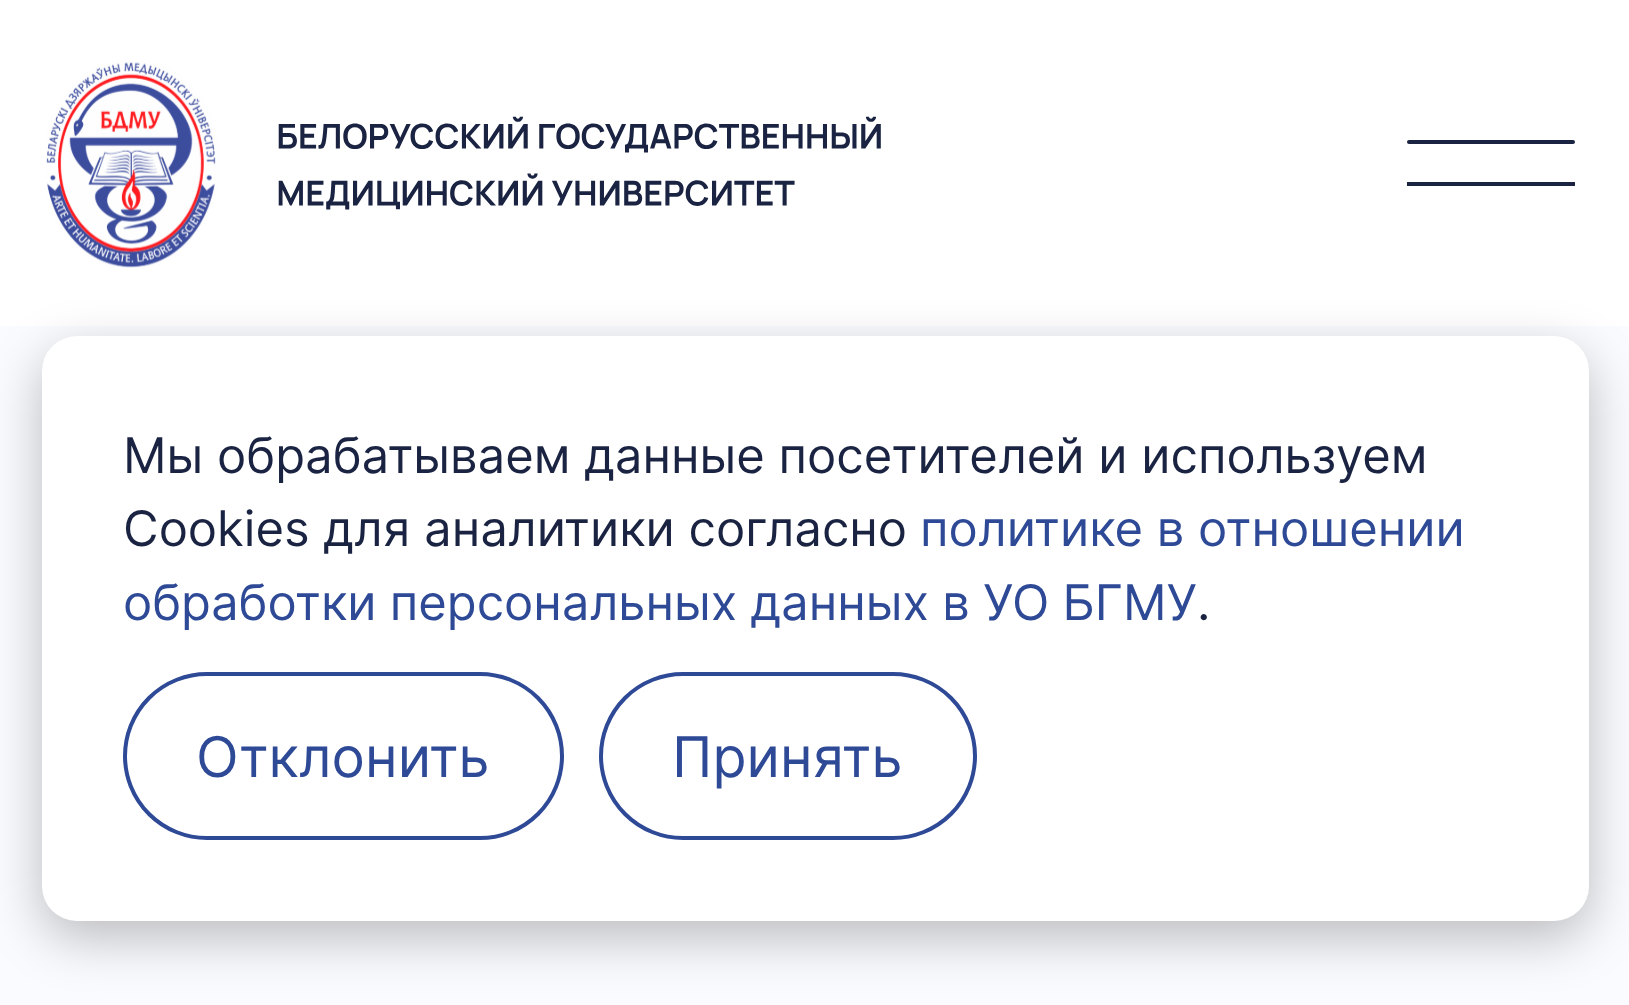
<svg xmlns="http://www.w3.org/2000/svg" width="1629" height="1005">
<rect width="100%" height="100%" fill="#fff"/>
<image x="46" y="62" width="835" height="206" href="media/1.png"/>
<rect x="1407" y="140" width="168" height="4" rx="2" fill="#1a2442"/>
<rect x="1407" y="182" width="168" height="4" fill="#1a2442"/>
<rect y="326" width="1629" height="679" fill="#fafbfe"/>
<rect x="42" y="354" width="1547" height="584" rx="35" fill="#00000040" filter="blur(26px)"/>
<rect x="42" y="336" width="1547" height="585" rx="35" fill="#fff"/>
<text x="123" y="473" style="font-family:Inter;font-size:49px;fill:#1a2442">Мы обрабатываем данные посетителей и используем</text>
<text x="123" y="546" style="font-family:Inter;font-size:49px;fill:#1a2442">Cookies для аналитики согласно</text>
<text x="920" y="546" style="font-family:Inter;font-size:49px;fill:#2e4a97">политике в отношении</text>
<text x="123" y="620" word-spacing="-0.5" style="font-family:Inter;font-size:49px;fill:#2e4a97">обработки персональных данных в УО БГМУ</text>
<text x="1197" y="620" style="font-family:Inter;font-size:49px;fill:#1a2442">.</text>
<rect x="125" y="674" width="437" height="164" rx="82" fill="none" stroke="#2e4a97" stroke-width="4"/>
<text x="196" y="777" style="font-family:Inter;font-size:56px;fill:#2e4a97">Отклонить</text>
<rect x="601" y="674" width="374" height="164" rx="82" fill="none" stroke="#2e4a97" stroke-width="4"/>
<text x="672" y="777" style="font-family:Inter;font-size:56px;fill:#2e4a97">Принять</text>
</svg>
